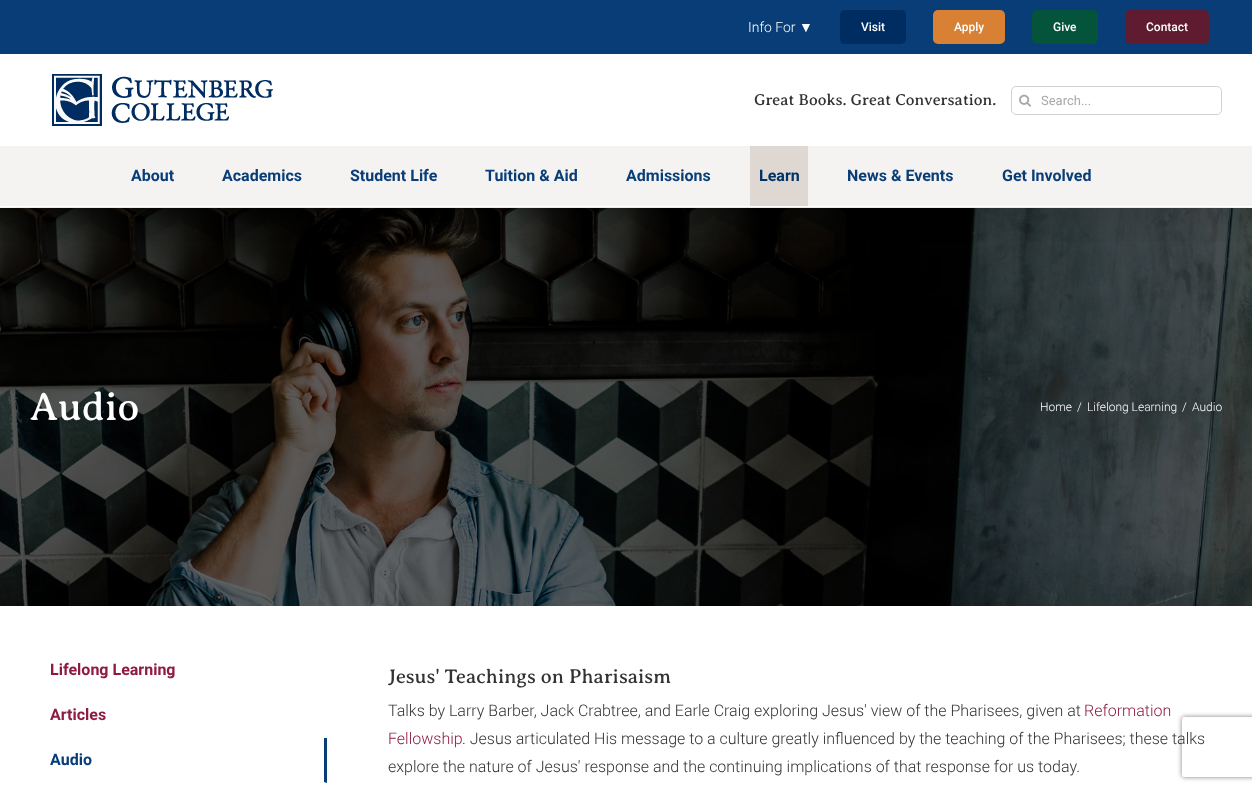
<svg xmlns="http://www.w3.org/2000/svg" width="1252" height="791">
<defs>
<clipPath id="clip1"><rect x="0" y="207" width="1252" height="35"/></clipPath>
<clipPath id="clip2"><path d="M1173 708h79v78h-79zm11 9h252c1 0 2 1 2 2v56c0 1-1 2-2 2h-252c-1 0-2-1-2-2v-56c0-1 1-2 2-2z" clip-rule="evenodd"/></clipPath>
</defs>
<rect width="100%" height="100%" fill="#fff"/>
<image x="0" y="208" width="1252" height="398" href="media/3.png"/>
<g clip-path="url(#clip1)">
<rect x="2" y="12" width="1248" height="203" fill="#00000024" filter="blur(25px)"/>
</g>
<rect width="1252" height="54" fill="#083d77"/>
<text x="748" y="32" style="font-family:Roboto;font-size:14px;font-weight:300;fill:#fff">Info For</text>
<text x="799" y="32" style="font-family:Liberation Sans;font-size:14px;fill:#fff">▼</text>
<rect x="840" y="10" width="66" height="34" rx="5" fill="#002d61"/>
<text x="861" y="31" style="font-family:Roboto;font-size:12px;font-weight:500;fill:#fff">Visit</text>
<rect x="933" y="10" width="72" height="34" rx="5" fill="#d88034"/>
<text x="954" y="31" style="font-family:Roboto;font-size:12px;font-weight:500;fill:#fff">Apply</text>
<rect x="1032" y="10" width="66" height="34" rx="5" fill="#03543a"/>
<text x="1053" y="31" style="font-family:Roboto;font-size:12px;font-weight:500;fill:#fff">Give</text>
<rect x="1125" y="10" width="84" height="34" rx="5" fill="#5f1c31"/>
<text x="1146" y="31" style="font-family:Roboto;font-size:12px;font-weight:500;fill:#fff">Contact</text>
<image x="52" y="74" width="221" height="52" href="media/1.png"/>
<text x="754" y="105" style="font-family:Averia Serif Libre;font-size:16px;fill:#333">Great Books. Great Conversation.</text>
<rect x="1011.5" y="86.5" width="210" height="28" rx="4.5" fill="none" stroke="#d2d2d2"/>
<image x="1019" y="94" width="12" height="13" href="media/2.png"/>
<text x="1041" y="105" style="font-family:Roboto;font-size:13px;fill:#aaa9a9">Search...</text>
<rect y="146" width="1252" height="60" fill="#f5f3f1"/>
<text x="131" y="181" style="font-family:Roboto;font-size:16px;font-weight:bold;fill:#083d77">About</text>
<text x="222" y="181" style="font-family:Roboto;font-size:16px;font-weight:bold;fill:#083d77">Academics</text>
<text x="350" y="181" style="font-family:Roboto;font-size:16px;font-weight:bold;fill:#083d77">Student Life</text>
<text x="485" y="181" style="font-family:Roboto;font-size:16px;font-weight:bold;fill:#083d77">Tuition &amp; Aid</text>
<text x="626" y="181" style="font-family:Roboto;font-size:16px;font-weight:bold;fill:#083d77">Admissions</text>
<rect x="750" y="146" width="58" height="60" fill="#dfd7d1"/>
<text x="759" y="181" style="font-family:Roboto;font-size:16px;font-weight:bold;fill:#036">Learn</text>
<text x="847" y="181" style="font-family:Roboto;font-size:16px;font-weight:bold;fill:#083d77">News &amp; Events</text>
<text x="1002" y="181" style="font-family:Roboto;font-size:16px;font-weight:bold;fill:#083d77">Get Involved</text>
<text x="30" y="420" style="font-family:Averia Serif Libre;font-size:40px;fill:#fff">Audio</text>
<text x="1040" y="411" style="font-family:Roboto;font-size:12px;font-weight:300;fill:#fff">Home</text>
<text x="1077" y="411" style="font-family:Roboto;font-size:12px;font-weight:300;fill:#fff">/</text>
<text x="1087" y="411" style="font-family:Roboto;font-size:12px;font-weight:300;fill:#fff">Lifelong Learning</text>
<text x="1182" y="411" style="font-family:Roboto;font-size:12px;font-weight:300;fill:#fff">/</text>
<text x="1192" y="411" style="font-family:Roboto;font-size:12px;font-weight:300;fill:#fff">Audio</text>
<text x="50" y="675" style="font-family:Roboto;font-size:16px;font-weight:bold;fill:#8e1c42">Lifelong Learning</text>
<text x="50" y="720" style="font-family:Roboto;font-size:16px;font-weight:bold;fill:#8e1c42">Articles</text>
<path d="M327 738v45l-3-1v-44z" fill="#083d77"/>
<text x="50" y="765" style="font-family:Roboto;font-size:16px;font-weight:bold;fill:#083d77">Audio</text>
<text x="388" y="683" style="font-family:Averia Serif Libre;font-size:20px;fill:#333">Jesus' Teachings on Pharisaism</text>
<text x="388" y="716" style="font-family:Roboto;font-size:16px;font-weight:300;fill:#333">Talks by Larry Barber, Jack Crabtree, and Earle Craig exploring Jesus' view of the Pharisees, given at</text>
<text x="1084" y="716" style="font-family:Roboto;font-size:16px;font-weight:300;fill:#8e1c42">Reformation</text>
<text x="388" y="744" style="font-family:Roboto;font-size:16px;font-weight:300;fill:#8e1c42">Fellowship</text>
<g clip-path="url(#clip2)">
<rect x="1182" y="717" width="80" height="60" rx="2" fill="#808080" filter="blur(2.5px)"/>
</g>
<text x="462" y="744" style="font-family:Roboto;font-size:16px;font-weight:300;fill:#333">. Jesus articulated His message to a culture greatly influenced by the teaching of the Pharisees; these talks</text>
<text x="388" y="772" style="font-family:Roboto;font-size:16px;font-weight:300;fill:#333">explore the nature of Jesus' response and the continuing implications of that response for us today.</text>
</svg>
